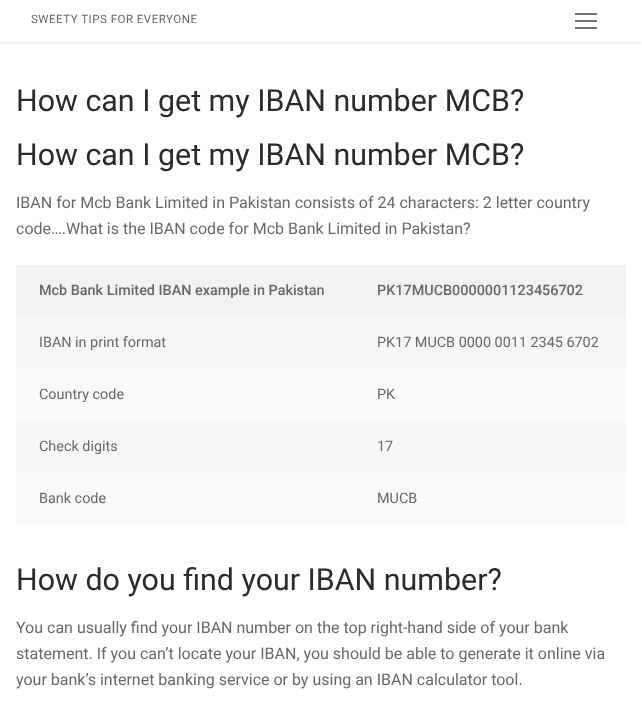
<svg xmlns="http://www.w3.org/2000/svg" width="642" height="704">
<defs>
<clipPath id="clip1"><rect x="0" y="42" width="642" height="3"/></clipPath>
</defs>
<rect width="100%" height="100%" fill="#fff"/>
<g clip-path="url(#clip1)">
<rect y="1" width="642" height="42" fill="#e1e5ea" filter="blur(1px)"/>
</g>
<text x="31" y="23" style="font-family:Roboto;font-size:11.5px;letter-spacing:0.5px;fill:#686868">SWEETY TIPS FOR EVERYONE</text>
<rect x="575" y="20" width="22" height="2" fill="#737373"/>
<rect x="575" y="13" width="22" height="2" fill="#737373"/>
<rect x="575" y="27" width="22" height="2" fill="#737373"/>
<text x="16" y="111" style="font-family:Roboto;font-size:30.4px;fill:#2b2b2b">How can I get my IBAN number MCB?</text>
<text x="16" y="165" style="font-family:Roboto;font-size:30.4px;fill:#2b2b2b">How can I get my IBAN number MCB?</text>
<text x="16" y="208" style="font-family:Roboto;font-size:16px;fill:#686868">IBAN for Mcb Bank Limited in Pakistan consists of 24 characters: 2 letter country</text>
<text x="16" y="234" style="font-family:Roboto;font-size:16px;fill:#686868">code….What is the IBAN code for Mcb Bank Limited in Pakistan?</text>
<rect x="16" y="265" width="610" height="52" fill="#f2f2f2"/>
<text x="39" y="295" style="font-family:Roboto;font-size:14.4px;font-weight:500;fill:#686868">Mcb Bank Limited IBAN example in Pakistan</text>
<text x="377" y="295" style="font-family:Roboto;font-size:14.4px;font-weight:500;fill:#686868">PK17MUCB0000001123456702</text>
<rect x="16" y="317" width="610" height="52" fill="#f7f7f7"/>
<text x="39" y="347" style="font-family:Roboto;font-size:14.4px;fill:#686868">IBAN in print format</text>
<text x="377" y="347" style="font-family:Roboto;font-size:14.4px;fill:#686868">PK17 MUCB 0000 0011 2345 6702</text>
<rect x="16" y="369" width="610" height="52" fill="#fafafa"/>
<text x="39" y="399" style="font-family:Roboto;font-size:14.4px;fill:#686868">Country code</text>
<text x="377" y="399" style="font-family:Roboto;font-size:14.4px;fill:#686868">PK</text>
<rect x="16" y="421" width="610" height="52" fill="#f7f7f7"/>
<text x="39" y="451" style="font-family:Roboto;font-size:14.4px;fill:#686868">Check digits</text>
<text x="377" y="451" style="font-family:Roboto;font-size:14.4px;fill:#686868">17</text>
<rect x="16" y="473" width="610" height="52" fill="#fafafa"/>
<text x="39" y="503" style="font-family:Roboto;font-size:14.4px;fill:#686868">Bank code</text>
<text x="377" y="503" style="font-family:Roboto;font-size:14.4px;fill:#686868">MUCB</text>
<text x="16" y="590" style="font-family:Roboto;font-size:30.4px;fill:#2b2b2b">How do you find your IBAN number?</text>
<text x="16" y="633" style="font-family:Roboto;font-size:16px;fill:#686868">You can usually find your IBAN number on the top right-hand side of your bank</text>
<text x="16" y="659" style="font-family:Roboto;font-size:16px;fill:#686868">statement. If you can’t locate your IBAN, you should be able to generate it online via</text>
<text x="16" y="685" style="font-family:Roboto;font-size:16px;fill:#686868">your bank’s internet banking service or by using an IBAN calculator tool.</text>
</svg>
